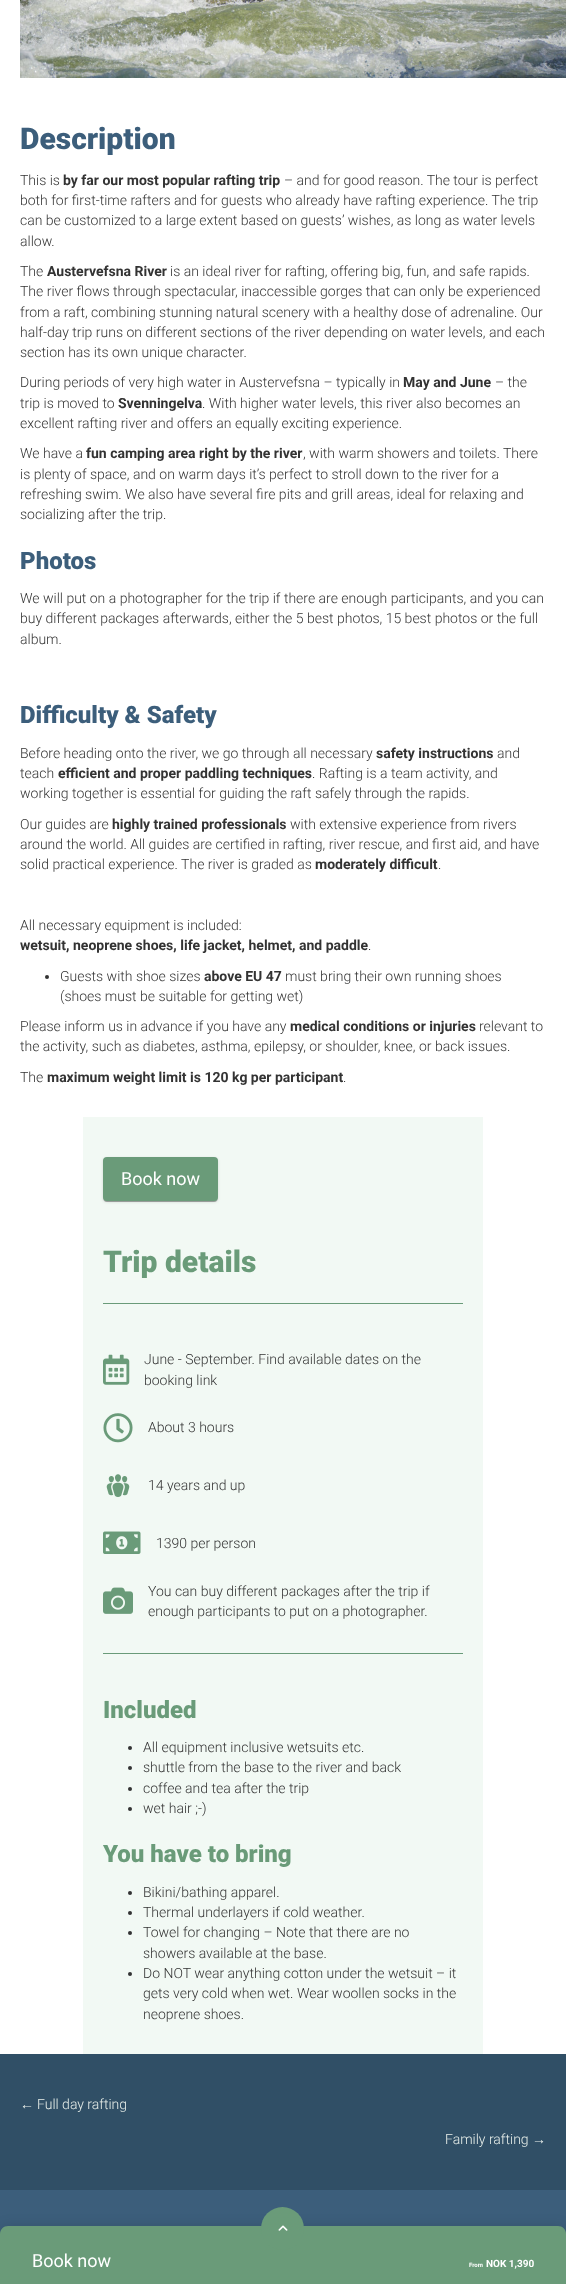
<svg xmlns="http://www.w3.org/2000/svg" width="566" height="2284">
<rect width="100%" height="100%" fill="#fff"/>
<image x="20" y="0" width="546" height="78" href="media/1.png"/>
<text x="20" y="149" style="font-family:Roboto;font-size:30px;font-weight:900;fill:#3c5e7b">Description</text>
<text x="20" y="185" style="font-family:Roboto;font-size:14px;font-weight:300;fill:#333">This is</text>
<text x="63" y="185" style="font-family:Roboto;font-size:14px;font-weight:bold;fill:#333">by far our most popular rafting trip</text>
<text x="284" y="185" style="font-family:Roboto;font-size:14px;font-weight:300;fill:#333">– and for good reason. The tour is perfect</text>
<text x="20" y="205" style="font-family:Roboto;font-size:14px;font-weight:300;fill:#333">both for first-time rafters and for guests who already have rafting experience. The trip</text>
<text x="20" y="225" style="font-family:Roboto;font-size:14px;font-weight:300;fill:#333">can be customized to a large extent based on guests’ wishes, as long as water levels</text>
<text x="20" y="246" style="font-family:Roboto;font-size:14px;font-weight:300;fill:#333">allow.</text>
<text x="20" y="276" style="font-family:Roboto;font-size:14px;font-weight:300;fill:#333">The</text>
<text x="47" y="276" style="font-family:Roboto;font-size:14px;font-weight:bold;fill:#333">Austervefsna River</text>
<text x="170" y="276" style="font-family:Roboto;font-size:14px;font-weight:300;fill:#333">is an ideal river for rafting, offering big, fun, and safe rapids.</text>
<text x="20" y="296" style="font-family:Roboto;font-size:14px;font-weight:300;fill:#333">The river flows through spectacular, inaccessible gorges that can only be experienced</text>
<text x="20" y="317" style="font-family:Roboto;font-size:14px;font-weight:300;fill:#333">from a raft, combining stunning natural scenery with a healthy dose of adrenaline. Our</text>
<text x="20" y="337" style="font-family:Roboto;font-size:14px;font-weight:300;fill:#333">half-day trip runs on different sections of the river depending on water levels, and each</text>
<text x="20" y="357" style="font-family:Roboto;font-size:14px;font-weight:300;fill:#333">section has its own unique character.</text>
<text x="20" y="387" style="font-family:Roboto;font-size:14px;font-weight:300;fill:#333">During periods of very high water in Austervefsna – typically in</text>
<text x="403" y="387" style="font-family:Roboto;font-size:14px;font-weight:bold;fill:#333">May and June</text>
<text x="495" y="387" style="font-family:Roboto;font-size:14px;font-weight:300;fill:#333">– the</text>
<text x="20" y="408" style="font-family:Roboto;font-size:14px;font-weight:300;fill:#333">trip is moved to</text>
<text x="118" y="408" style="font-family:Roboto;font-size:14px;font-weight:bold;fill:#333">Svenningelva</text>
<text x="202" y="408" style="font-family:Roboto;font-size:14px;font-weight:300;fill:#333">. With higher water levels, this river also becomes an</text>
<text x="20" y="428" style="font-family:Roboto;font-size:14px;font-weight:300;fill:#333">excellent rafting river and offers an equally exciting experience.</text>
<text x="20" y="458" style="font-family:Roboto;font-size:14px;font-weight:300;fill:#333">We have a</text>
<text x="86" y="458" style="font-family:Roboto;font-size:14px;font-weight:bold;fill:#333">fun camping area right by the river</text>
<text x="303" y="458" style="font-family:Roboto;font-size:14px;font-weight:300;fill:#333">, with warm showers and toilets. There</text>
<text x="20" y="479" style="font-family:Roboto;font-size:14px;font-weight:300;fill:#333">is plenty of space, and on warm days it’s perfect to stroll down to the river for a</text>
<text x="20" y="499" style="font-family:Roboto;font-size:14px;font-weight:300;fill:#333">refreshing swim. We also have several fire pits and grill areas, ideal for relaxing and</text>
<text x="20" y="519" style="font-family:Roboto;font-size:14px;font-weight:300;fill:#333">socializing after the trip.</text>
<text x="20" y="569" style="font-family:Roboto;font-size:24px;font-weight:900;fill:#3c5e7b">Photos</text>
<text x="20" y="603" style="font-family:Roboto;font-size:14px;font-weight:300;fill:#333">We will put on a photographer for the trip if there are enough participants, and you can</text>
<text x="20" y="623" style="font-family:Roboto;font-size:14px;font-weight:300;fill:#333">buy different packages afterwards, either the 5 best photos, 15 best photos or the full</text>
<text x="20" y="644" style="font-family:Roboto;font-size:14px;font-weight:300;fill:#333">album.</text>
<text x="20" y="723" style="font-family:Roboto;font-size:24px;font-weight:900;fill:#3c5e7b">Difficulty &amp; Safety</text>
<text x="20" y="758" style="font-family:Roboto;font-size:14px;font-weight:300;fill:#333">Before heading onto the river, we go through all necessary</text>
<text x="376" y="758" style="font-family:Roboto;font-size:14px;font-weight:bold;fill:#333">safety instructions</text>
<text x="497" y="758" style="font-family:Roboto;font-size:14px;font-weight:300;fill:#333">and</text>
<text x="20" y="778" style="font-family:Roboto;font-size:14px;font-weight:300;fill:#333">teach</text>
<text x="58" y="778" style="font-family:Roboto;font-size:14px;font-weight:bold;fill:#333">efficient and proper paddling techniques</text>
<text x="312" y="778" style="font-family:Roboto;font-size:14px;font-weight:300;fill:#333">. Rafting is a team activity, and</text>
<text x="20" y="798" style="font-family:Roboto;font-size:14px;font-weight:300;fill:#333">working together is essential for guiding the raft safely through the rapids.</text>
<text x="20" y="829" style="font-family:Roboto;font-size:14px;font-weight:300;fill:#333">Our guides are</text>
<text x="112" y="829" style="font-family:Roboto;font-size:14px;font-weight:bold;fill:#333">highly trained professionals</text>
<text x="290" y="829" style="font-family:Roboto;font-size:14px;font-weight:300;fill:#333">with extensive experience from rivers</text>
<text x="20" y="849" style="font-family:Roboto;font-size:14px;font-weight:300;fill:#333">around the world. All guides are certified in rafting, river rescue, and first aid, and have</text>
<text x="20" y="869" style="font-family:Roboto;font-size:14px;font-weight:300;fill:#333">solid practical experience. The river is graded as</text>
<text x="315" y="869" style="font-family:Roboto;font-size:14px;font-weight:bold;fill:#333">moderately difficult</text>
<text x="438" y="869" style="font-family:Roboto;font-size:14px;font-weight:300;fill:#333">.</text>
<text x="20" y="930" style="font-family:Roboto;font-size:14px;font-weight:300;fill:#333">All necessary equipment is included:</text>
<text x="20" y="950" style="font-family:Roboto;font-size:14px;font-weight:bold;fill:#333">wetsuit, neoprene shoes, life jacket, helmet, and paddle</text>
<text x="368" y="950" style="font-family:Roboto;font-size:14px;font-weight:300;fill:#333">.</text>
<circle cx="47" cy="977" r="2" fill="#333"/>
<text x="60" y="981" style="font-family:Roboto;font-size:14px;font-weight:300;fill:#333">Guests with shoe sizes</text>
<text x="204" y="981" style="font-family:Roboto;font-size:14px;font-weight:bold;fill:#333">above EU 47</text>
<text x="285" y="981" style="font-family:Roboto;font-size:14px;font-weight:300;fill:#333">must bring their own running shoes</text>
<text x="60" y="1001" style="font-family:Roboto;font-size:14px;font-weight:300;fill:#333">(shoes must be suitable for getting wet)</text>
<text x="20" y="1031" style="font-family:Roboto;font-size:14px;font-weight:300;fill:#333">Please inform us in advance if you have any</text>
<text x="290" y="1031" style="font-family:Roboto;font-size:14px;font-weight:bold;fill:#333">medical conditions or injuries</text>
<text x="479" y="1031" style="font-family:Roboto;font-size:14px;font-weight:300;fill:#333">relevant to</text>
<text x="20" y="1051" style="font-family:Roboto;font-size:14px;font-weight:300;fill:#333">the activity, such as diabetes, asthma, epilepsy, or shoulder, knee, or back issues.</text>
<text x="20" y="1082" style="font-family:Roboto;font-size:14px;font-weight:300;fill:#333">The</text>
<text x="47" y="1082" style="font-family:Roboto;font-size:14px;font-weight:bold;fill:#333">maximum weight limit is 120 kg per participant</text>
<text x="343" y="1082" style="font-family:Roboto;font-size:14px;font-weight:300;fill:#333">.</text>
<rect x="83" y="1117" width="400" height="937" fill="#f2f9f4"/>
<rect x="103" y="1158" width="115" height="44" rx="4" fill="#0000001f" filter="blur(1.5px)"/>
<rect x="103" y="1158" width="115" height="44" rx="4" fill="#00000024" filter="blur(0.5px)"/>
<rect x="104" y="1160" width="113" height="42" rx="3" fill="#00000033" filter="blur(0.5px)"/>
<rect x="103" y="1157" width="115" height="44" rx="4" fill="#6a9b79"/>
<text x="121" y="1185" style="font-family:Roboto;font-size:18px;fill:#fff">Book now</text>
<text x="103" y="1272" style="font-family:Roboto;font-size:30px;font-weight:900;fill:#6a9b79">Trip details</text>
<rect x="103" y="1303" width="360" height="1" fill="#6a9b79"/>
<image x="103" y="1354" width="27" height="31" href="media/2.png"/>
<text x="144" y="1364" style="font-family:Roboto;font-size:14px;font-weight:300;fill:#333">June - September. Find available dates on the</text>
<text x="144" y="1385" style="font-family:Roboto;font-size:14px;font-weight:300;fill:#333">booking link</text>
<image x="103" y="1413" width="30" height="30" href="media/3.png"/>
<text x="148" y="1432" style="font-family:Roboto;font-size:14px;font-weight:300;fill:#333">About 3 hours</text>
<image x="106" y="1474" width="24" height="23" href="media/4.png"/>
<text x="148" y="1490" style="font-family:Roboto;font-size:14px;font-weight:300;fill:#333">14 years and up</text>
<image x="103" y="1531" width="38" height="23" href="media/5.png"/>
<text x="156" y="1548" style="font-family:Roboto;font-size:14px;font-weight:300;fill:#333">1390 per person</text>
<image x="103" y="1587" width="30" height="27" href="media/6.png"/>
<text x="148" y="1596" style="font-family:Roboto;font-size:14px;font-weight:300;fill:#333">You can buy different packages after the trip if</text>
<text x="148" y="1616" style="font-family:Roboto;font-size:14px;font-weight:300;fill:#333">enough participants to put on a photographer.</text>
<rect x="103" y="1653" width="360" height="1" fill="#6a9b79"/>
<text x="103" y="1718" style="font-family:Roboto;font-size:24px;font-weight:900;fill:#6a9b79">Included</text>
<circle cx="130" cy="1748" r="2" fill="#333"/>
<text x="143" y="1752" style="font-family:Roboto;font-size:14px;font-weight:300;fill:#333">All equipment inclusive wetsuits etc.</text>
<circle cx="130" cy="1768" r="2" fill="#333"/>
<text x="143" y="1772" style="font-family:Roboto;font-size:14px;font-weight:300;fill:#333">shuttle from the base to the river and back</text>
<circle cx="130" cy="1789" r="2" fill="#333"/>
<text x="143" y="1793" style="font-family:Roboto;font-size:14px;font-weight:300;fill:#333">coffee and tea after the trip</text>
<circle cx="130" cy="1809" r="2" fill="#333"/>
<text x="143" y="1813" style="font-family:Roboto;font-size:14px;font-weight:300;fill:#333">wet hair ;-)</text>
<text x="103" y="1862" style="font-family:Roboto;font-size:24px;font-weight:900;fill:#6a9b79">You have to bring</text>
<circle cx="130" cy="1893" r="2" fill="#333"/>
<text x="143" y="1897" style="font-family:Roboto;font-size:14px;font-weight:300;fill:#333">Bikini/bathing apparel.</text>
<circle cx="130" cy="1913" r="2" fill="#333"/>
<text x="143" y="1917" style="font-family:Roboto;font-size:14px;font-weight:300;fill:#333">Thermal underlayers if cold weather.</text>
<circle cx="130" cy="1933" r="2" fill="#333"/>
<text x="143" y="1937" style="font-family:Roboto;font-size:14px;font-weight:300;fill:#333">Towel for changing – Note that there are no</text>
<text x="143" y="1958" style="font-family:Roboto;font-size:14px;font-weight:300;fill:#333">showers available at the base.</text>
<circle cx="130" cy="1974" r="2" fill="#333"/>
<text x="143" y="1978" style="font-family:Roboto;font-size:14px;font-weight:300;fill:#333">Do NOT wear anything cotton under the wetsuit – it</text>
<text x="143" y="1998" style="font-family:Roboto;font-size:14px;font-weight:300;fill:#333">gets very cold when wet. Wear woollen socks in the</text>
<text x="143" y="2019" style="font-family:Roboto;font-size:14px;font-weight:300;fill:#333">neoprene shoes.</text>
<rect y="2054" width="566" height="136" fill="#304f66"/>
<text x="20" y="2109" style="font-family:Liberation Sans;font-size:14px;fill:#e8efea">←</text>
<text x="37" y="2109" style="font-family:Roboto;font-size:14px;font-weight:300;fill:#e8efea">Full day rafting</text>
<text x="445" y="2144" style="font-family:Roboto;font-size:14px;font-weight:300;fill:#e8efea">Family rafting</text>
<text x="532" y="2144" style="font-family:Liberation Sans;font-size:14px;fill:#e8efea">→</text>
<rect y="2190" width="566" height="44" fill="#3c5e7b"/>
<rect y="2227" width="566" height="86" rx="8" fill="#0000001f" filter="blur(7px)"/>
<path d="M8 2226h550c4.5 0 8 3.5 8 8v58h-566v-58c0-4.5 3.5-8 8-8z" fill="#6a9b79"/>
<circle cx="282.5" cy="2228.5" r="21.5" fill="#6a9b79"/>
<image x="278" y="2225" width="10" height="6" href="media/7.png"/>
<text x="32" y="2267" style="font-family:Roboto;font-size:18px;fill:#fff">Book now</text>
<text x="469" y="2267" style="font-family:Roboto;font-size:6px;font-weight:bold;fill:#fff">From</text>
<text x="486" y="2267" style="font-family:Roboto;font-size:10px;font-weight:bold;fill:#fff">NOK 1,390</text>
</svg>
